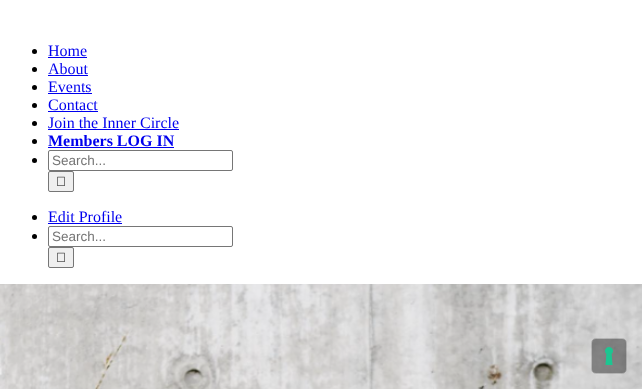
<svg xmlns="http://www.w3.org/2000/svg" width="642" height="389">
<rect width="100%" height="100%" fill="#fff"/>
<circle cx="34.5" cy="51.5" r="2.5" fill="#000"/>
<text x="48" y="56" style="font-family:Liberation Serif;font-size:16px;fill:#00e">Home</text>
<rect x="48" y="57" width="39" height="1" fill="#00e"/>
<circle cx="34.5" cy="69.5" r="2.5" fill="#000"/>
<text x="48" y="74" style="font-family:Liberation Serif;font-size:16px;fill:#00e">About</text>
<rect x="48" y="75" width="40" height="1" fill="#00e"/>
<circle cx="34.5" cy="87.5" r="2.5" fill="#000"/>
<text x="48" y="92" style="font-family:Liberation Serif;font-size:16px;fill:#00e">Events</text>
<rect x="48" y="93" width="44" height="1" fill="#00e"/>
<circle cx="34.5" cy="105.5" r="2.5" fill="#000"/>
<text x="48" y="110" style="font-family:Liberation Serif;font-size:16px;fill:#00e">Contact</text>
<rect x="48" y="111" width="50" height="1" fill="#00e"/>
<circle cx="34.5" cy="123.5" r="2.5" fill="#000"/>
<text x="48" y="128" style="font-family:Liberation Serif;font-size:16px;fill:#00e">Join the Inner Circle</text>
<rect x="48" y="129" width="131" height="1" fill="#00e"/>
<circle cx="34.5" cy="141.5" r="2.5" fill="#000"/>
<text x="48" y="146" style="font-family:Liberation Serif;font-size:16px;font-weight:bold;fill:#00e">Members LOG IN</text>
<rect x="48" y="147" width="126" height="1" fill="#00e"/>
<circle cx="34.5" cy="160.5" r="2.5" fill="#000"/>
<rect x="48.5" y="150.5" width="184" height="20" rx="1.5" fill="none" stroke="#767676"/>
<text x="52" y="165" style="font-family:Liberation Sans;font-size:13.5px;fill:#757575">Search...</text>
<rect x="48.5" y="171.5" width="25" height="20" rx="1.5" fill="#efefef" stroke="#767676"/>
<image x="57" y="176" width="8" height="10" href="media/1.png"/>
<circle cx="34.5" cy="217.5" r="2.5" fill="#000"/>
<text x="48" y="222" style="font-family:Liberation Serif;font-size:16px;fill:#00e">Edit Profile</text>
<rect x="48" y="223" width="74" height="1" fill="#00e"/>
<circle cx="34.5" cy="236.5" r="2.5" fill="#000"/>
<rect x="48.5" y="226.5" width="184" height="20" rx="1.5" fill="none" stroke="#767676"/>
<text x="52" y="241" style="font-family:Liberation Sans;font-size:13.5px;fill:#757575">Search...</text>
<rect x="48.5" y="247.5" width="25" height="20" rx="1.5" fill="#efefef" stroke="#767676"/>
<image x="57" y="252" width="8" height="10" href="media/1.png"/>
<image x="0" y="284" width="642" height="105" href="media/2.png"/>
<rect x="591.5" y="338.5" width="35" height="35" rx="4.5" fill="none" stroke="#00000026"/>
<rect x="592" y="339" width="34" height="34" rx="4" fill="#02020266"/>
<image x="605" y="347" width="8" height="18" href="media/3.png"/>
</svg>
